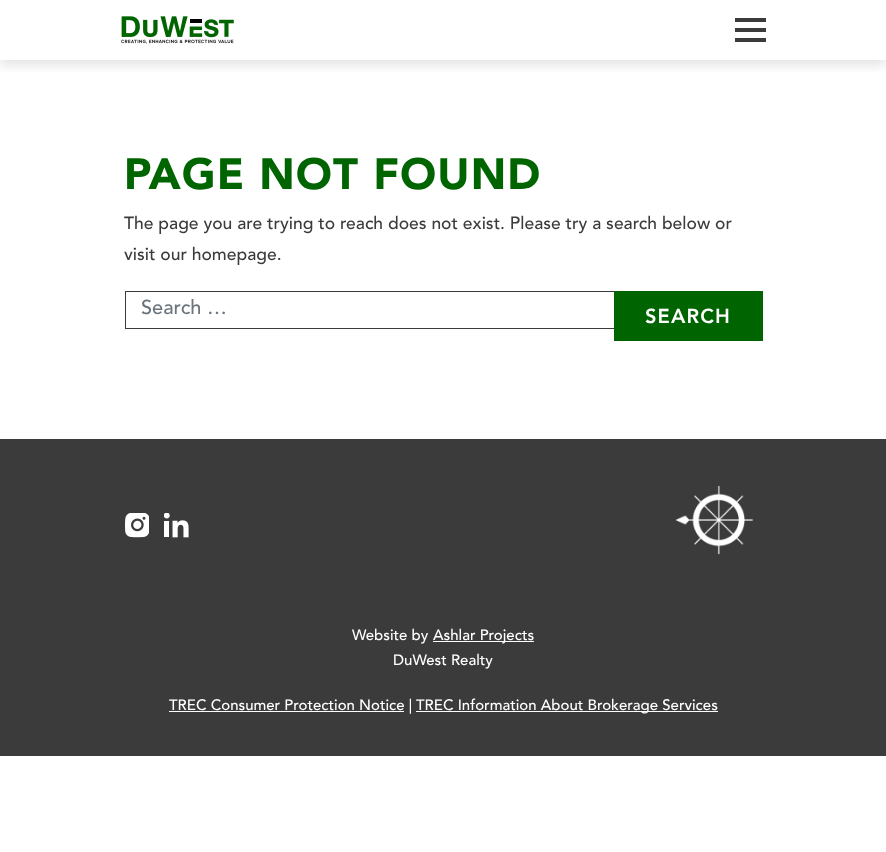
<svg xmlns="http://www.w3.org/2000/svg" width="886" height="852">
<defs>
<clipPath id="clip1"><rect x="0" y="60" width="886" height="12"/></clipPath>
</defs>
<rect width="100%" height="100%" fill="#fff"/>
<g clip-path="url(#clip1)">
<rect y="5" width="886" height="60" fill="#3b3b3b26" filter="blur(6px)"/>
</g>
<image x="121" y="16" width="113" height="28" href="media/1.png"/>
<rect x="735" y="28" width="31" height="4" fill="#3b3b3b"/>
<rect x="735" y="18" width="31" height="4" fill="#3b3b3b"/>
<rect x="735" y="38" width="31" height="4" fill="#3b3b3b"/>
<text x="124" y="189" style="font-family:Avenir;font-size:43.5px;font-weight:900;letter-spacing:1.1px;fill:#006400">PAGE NOT FOUND</text>
<text x="124" y="229" style="font-family:Avenir;font-size:17.5px;fill:#3b3b3b">The page you are trying to reach does not exist. Please try a search below or</text>
<text x="124" y="260" style="font-family:Avenir;font-size:17.5px;fill:#3b3b3b">visit our homepage.</text>
<rect x="125.5" y="291.5" width="489" height="37" fill="none" stroke="#3b3b3b"/>
<text x="141" y="314" style="font-family:Avenir;font-size:20px;fill:#6c757d">Search …</text>
<rect x="614" y="291" width="149" height="50" fill="#006400"/>
<text x="645" y="323" style="font-family:'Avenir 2';font-size:20px;letter-spacing:1.1px;fill:#fff">SEARCH</text>
<rect y="439" width="886" height="317" fill="#3b3b3b"/>
<image x="125" y="513" width="24" height="25" href="media/2.png"/>
<image x="164" y="513" width="25" height="25" href="media/3.png"/>
<image x="675" y="485" width="78" height="70" href="media/4.png"/>
<text x="352" y="640" style="font-family:Avenir;font-size:15px;fill:#fff">Website by</text>
<rect x="433" y="641" width="101" height="1" fill="#fff"/>
<text x="433" y="640" style="font-family:Avenir;font-size:15px;fill:#fff">Ashlar Projects</text>
<text x="393" y="665" style="font-family:Avenir;font-size:15px;fill:#fff">DuWest Realty</text>
<rect x="169" y="711" width="235" height="1" fill="#fff"/>
<text x="169" y="710" style="font-family:Avenir;font-size:15px;fill:#fff">TREC Consumer Protection Notice |</text>
<rect x="416" y="711" width="302" height="1" fill="#fff"/>
<text x="416" y="710" style="font-family:Avenir;font-size:15px;fill:#fff">TREC Information About Brokerage Services</text>
</svg>
